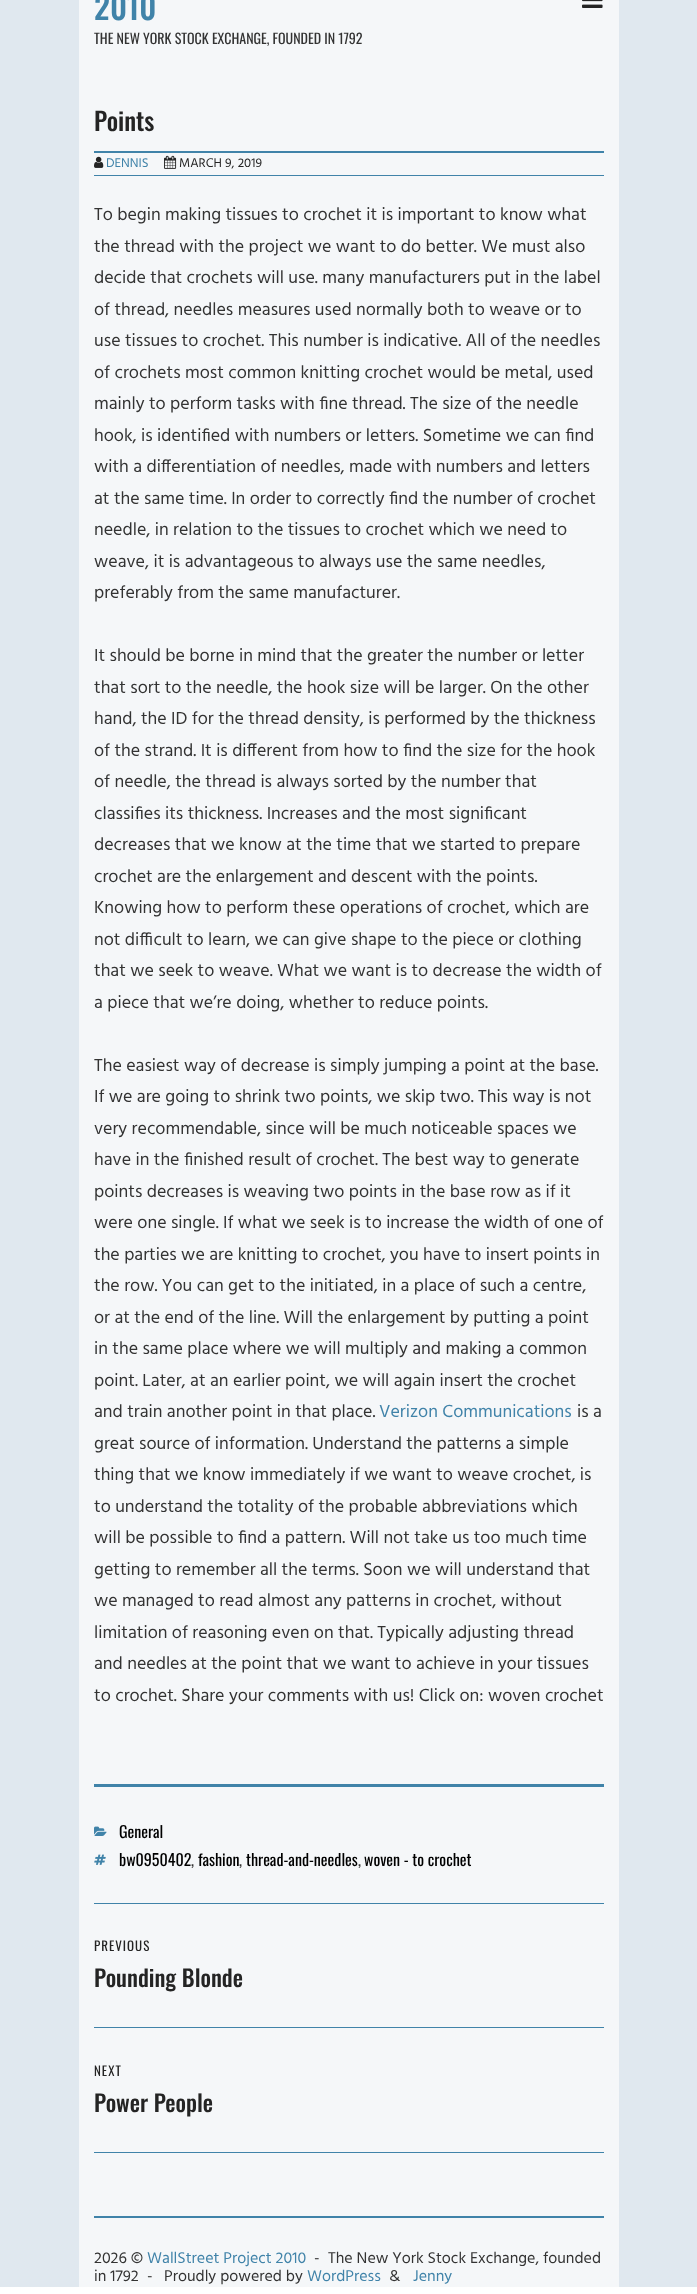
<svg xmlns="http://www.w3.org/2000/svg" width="697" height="2294">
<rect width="100%" height="100%" fill="#fff"/>
<rect width="697" height="2287" fill="#e0e8ef"/>
<rect x="79" width="540" height="2287" fill="#f5f7f9"/>
<text x="94" y="20" style="font-family:Oswald;font-size:32px;font-weight:500;fill:#4083a9">2010</text>
<text x="94" y="44" style="font-family:Oswald;font-size:14px;fill:#333">THE NEW YORK STOCK EXCHANGE, FOUNDED IN 1792</text>
<image x="582" y="0" width="21" height="8" href="media/1.png"/>
<text x="94" y="131" style="font-family:Oswald;font-size:25px;font-weight:500;fill:#242424">Points</text>
<rect x="94" y="151" width="510" height="2" fill="#4083a9"/>
<rect x="94" y="175" width="510" height="1" fill="#4083a9"/>
<image x="94" y="156" width="10" height="12" href="media/2.png"/>
<text x="106" y="167" style="font-family:Hind;font-size:13px;fill:#4083a9">DENNIS</text>
<image x="164" y="155" width="13" height="14" href="media/3.png"/>
<text x="179" y="167" style="font-family:Hind;font-size:13px;fill:#242424">MARCH 9, 2019</text>
<text x="94" y="220" style="font-family:Hind;font-size:18px;fill:#333">To begin making tissues to crochet it is important to know what</text>
<text x="94" y="252" style="font-family:Hind;font-size:18px;fill:#333">the thread with the project we want to do better. We must also</text>
<text x="94" y="283" style="font-family:Hind;font-size:18px;fill:#333">decide that crochets will use. many manufacturers put in the label</text>
<text x="94" y="315" style="font-family:Hind;font-size:18px;fill:#333">of thread, needles measures used normally both to weave or to</text>
<text x="94" y="346" style="font-family:Hind;font-size:18px;fill:#333">use tissues to crochet. This number is indicative. All of the needles</text>
<text x="94" y="378" style="font-family:Hind;font-size:18px;fill:#333">of crochets most common knitting crochet would be metal, used</text>
<text x="94" y="409" style="font-family:Hind;font-size:18px;fill:#333">mainly to perform tasks with fine thread. The size of the needle</text>
<text x="94" y="441" style="font-family:Hind;font-size:18px;fill:#333">hook, is identified with numbers or letters. Sometime we can find</text>
<text x="94" y="472" style="font-family:Hind;font-size:18px;fill:#333">with a differentiation of needles, made with numbers and letters</text>
<text x="94" y="504" style="font-family:Hind;font-size:18px;fill:#333">at the same time. In order to correctly find the number of crochet</text>
<text x="94" y="535" style="font-family:Hind;font-size:18px;fill:#333">needle, in relation to the tissues to crochet which we need to</text>
<text x="94" y="567" style="font-family:Hind;font-size:18px;fill:#333">weave, it is advantageous to always use the same needles,</text>
<text x="94" y="598" style="font-family:Hind;font-size:18px;fill:#333">preferably from the same manufacturer.</text>
<text x="94" y="661" style="font-family:Hind;font-size:18px;fill:#333">It should be borne in mind that the greater the number or letter</text>
<text x="94" y="693" style="font-family:Hind;font-size:18px;fill:#333">that sort to the needle, the hook size will be larger. On the other</text>
<text x="94" y="724" style="font-family:Hind;font-size:18px;fill:#333">hand, the ID for the thread density, is performed by the thickness</text>
<text x="94" y="756" style="font-family:Hind;font-size:18px;fill:#333">of the strand. It is different from how to find the size for the hook</text>
<text x="94" y="787" style="font-family:Hind;font-size:18px;fill:#333">of needle, the thread is always sorted by the number that</text>
<text x="94" y="819" style="font-family:Hind;font-size:18px;fill:#333">classifies its thickness. Increases and the most significant</text>
<text x="94" y="850" style="font-family:Hind;font-size:18px;fill:#333">decreases that we know at the time that we started to prepare</text>
<text x="94" y="882" style="font-family:Hind;font-size:18px;fill:#333">crochet are the enlargement and descent with the points.</text>
<text x="94" y="913" style="font-family:Hind;font-size:18px;fill:#333">Knowing how to perform these operations of crochet, which are</text>
<text x="94" y="945" style="font-family:Hind;font-size:18px;fill:#333">not difficult to learn, we can give shape to the piece or clothing</text>
<text x="94" y="976" style="font-family:Hind;font-size:18px;fill:#333">that we seek to weave. What we want is to decrease the width of</text>
<text x="94" y="1008" style="font-family:Hind;font-size:18px;fill:#333">a piece that we’re doing, whether to reduce points.</text>
<text x="94" y="1071" style="font-family:Hind;font-size:18px;fill:#333">The easiest way of decrease is simply jumping a point at the base.</text>
<text x="94" y="1102" style="font-family:Hind;font-size:18px;fill:#333">If we are going to shrink two points, we skip two. This way is not</text>
<text x="94" y="1134" style="font-family:Hind;font-size:18px;fill:#333">very recommendable, since will be much noticeable spaces we</text>
<text x="94" y="1165" style="font-family:Hind;font-size:18px;fill:#333">have in the finished result of crochet. The best way to generate</text>
<text x="94" y="1197" style="font-family:Hind;font-size:18px;fill:#333">points decreases is weaving two points in the base row as if it</text>
<text x="94" y="1228" style="font-family:Hind;font-size:18px;fill:#333">were one single. If what we seek is to increase the width of one of</text>
<text x="94" y="1260" style="font-family:Hind;font-size:18px;fill:#333">the parties we are knitting to crochet, you have to insert points in</text>
<text x="94" y="1291" style="font-family:Hind;font-size:18px;fill:#333">the row. You can get to the initiated, in a place of such a centre,</text>
<text x="94" y="1323" style="font-family:Hind;font-size:18px;fill:#333">or at the end of the line. Will the enlargement by putting a point</text>
<text x="94" y="1354" style="font-family:Hind;font-size:18px;fill:#333">in the same place where we will multiply and making a common</text>
<text x="94" y="1386" style="font-family:Hind;font-size:18px;fill:#333">point. Later, at an earlier point, we will again insert the crochet</text>
<text x="94" y="1417" style="font-family:Hind;font-size:18px;fill:#333">and train another point in that place.</text>
<text x="379" y="1417" style="font-family:Hind;font-size:18px;fill:#4083a9">Verizon Communications</text>
<text x="577" y="1417" style="font-family:Hind;font-size:18px;fill:#333">is a</text>
<text x="94" y="1449" style="font-family:Hind;font-size:18px;fill:#333">great source of information. Understand the patterns a simple</text>
<text x="94" y="1480" style="font-family:Hind;font-size:18px;fill:#333">thing that we know immediately if we want to weave crochet, is</text>
<text x="94" y="1512" style="font-family:Hind;font-size:18px;fill:#333">to understand the totality of the probable abbreviations which</text>
<text x="94" y="1543" style="font-family:Hind;font-size:18px;fill:#333">will be possible to find a pattern. Will not take us too much time</text>
<text x="94" y="1575" style="font-family:Hind;font-size:18px;fill:#333">getting to remember all the terms. Soon we will understand that</text>
<text x="94" y="1606" style="font-family:Hind;font-size:18px;fill:#333">we managed to read almost any patterns in crochet, without</text>
<text x="94" y="1638" style="font-family:Hind;font-size:18px;fill:#333">limitation of reasoning even on that. Typically adjusting thread</text>
<text x="94" y="1669" style="font-family:Hind;font-size:18px;fill:#333">and needles at the point that we want to achieve in your tissues</text>
<text x="94" y="1701" style="font-family:Hind;font-size:18px;fill:#333">to crochet. Share your comments with us! Click on: woven crochet</text>
<rect x="94" y="1784" width="510" height="3" fill="#4083a9"/>
<image x="94" y="1826" width="13" height="10" href="media/4.png"/>
<text x="119" y="1838" style="font-family:Oswald;font-size:16px;fill:#000">General</text>
<image x="94" y="1854" width="12" height="11" href="media/5.png"/>
<text x="119" y="1866" style="font-family:Oswald;font-size:16px;fill:#000">bw0950402</text>
<text x="198" y="1866" style="font-family:Oswald;font-size:16px;fill:#000">fashion</text>
<text x="246" y="1866" style="font-family:Oswald;font-size:16px;fill:#000">thread-and-needles</text>
<text x="364" y="1866" style="font-family:Oswald;font-size:16px;fill:#000">woven - to crochet</text>
<text x="191" y="1866" style="font-family:Oswald;font-size:16px;fill:#333">,</text>
<text x="239" y="1866" style="font-family:Oswald;font-size:16px;fill:#333">,</text>
<text x="358" y="1866" style="font-family:Oswald;font-size:16px;fill:#333">,</text>
<rect x="94" y="1903" width="510" height="1" fill="#4083a9"/>
<rect x="94" y="2152" width="510" height="1" fill="#4083a9"/>
<text x="94" y="1951" style="font-family:Oswald;font-size:13px;letter-spacing:1px;fill:#242424">PREVIOUS</text>
<text x="94" y="1987" style="font-family:Oswald;font-size:23px;font-weight:500;fill:#242424">Pounding Blonde</text>
<rect x="94" y="2027" width="510" height="1" fill="#4083a9"/>
<text x="94" y="2076" style="font-family:Oswald;font-size:13px;letter-spacing:1px;fill:#242424">NEXT</text>
<text x="94" y="2112" style="font-family:Oswald;font-size:23px;font-weight:500;fill:#242424">Power People</text>
<rect x="94" y="2216" width="510" height="2" fill="#4083a9"/>
<text x="94" y="2263" style="font-family:Hind;font-size:16px;fill:#333">2026 ©</text>
<text x="147" y="2263" style="font-family:Hind;font-size:16px;fill:#4083a9">WallStreet Project 2010</text>
<text x="314" y="2263" style="font-family:Hind;font-size:16px;fill:#333">-</text>
<text x="328" y="2263" style="font-family:Hind;font-size:16px;fill:#333">The New York Stock Exchange, founded</text>
<text x="94" y="2281" style="font-family:Hind;font-size:16px;fill:#333">in 1792</text>
<text x="147" y="2281" style="font-family:Hind;font-size:16px;fill:#333">-</text>
<text x="164" y="2281" style="font-family:Hind;font-size:16px;fill:#333">Proudly powered by</text>
<text x="307" y="2281" style="font-family:Hind;font-size:16px;fill:#4083a9">WordPress</text>
<text x="389" y="2281" style="font-family:Hind;font-size:16px;fill:#333">&amp;</text>
<text x="413" y="2281" style="font-family:Hind;font-size:16px;fill:#4083a9">Jenny</text>
</svg>
